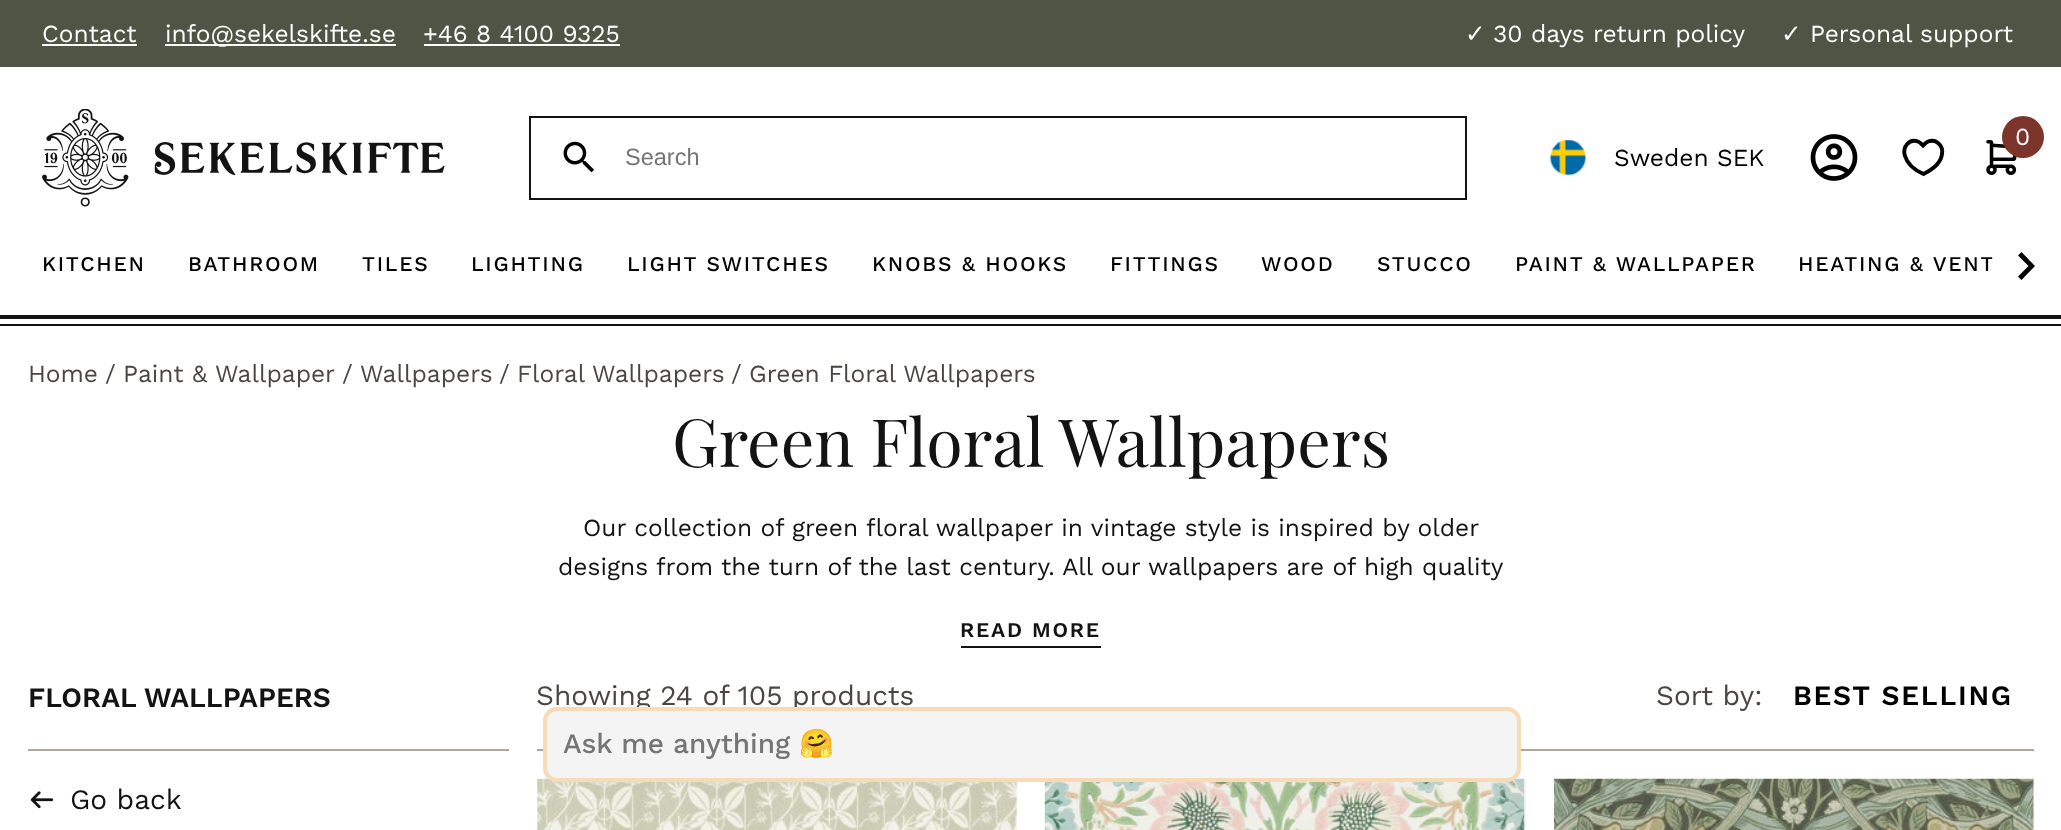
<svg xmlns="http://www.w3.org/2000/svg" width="2061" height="830">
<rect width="100%" height="100%" fill="#fff"/>
<rect x="2033" y="779" width="1" height="51" fill="#f5f5f5"/>
<rect x="1524" y="779" width="2" height="51" fill="#f5f5f5"/>
<rect width="2061" height="67" fill="#4e5544"/>
<text x="42" y="42" style="font-family:Work Sans;font-size:24.5px;fill:#fff">Contact</text>
<rect x="42" y="44" width="95" height="2" fill="#fff"/>
<rect x="165" y="44" width="231" height="2" fill="#fff"/>
<text x="165" y="42" style="font-family:Work Sans;font-size:24.5px;fill:#fff">info@sekelskifte.se</text>
<text x="423" y="42" style="font-family:Work Sans;font-size:24.5px;fill:#fff">+46 8 4100 9325</text>
<rect x="424" y="44" width="196" height="2" fill="#fff"/>
<text x="1465" y="42" style="font-family:DejaVu Sans;font-size:24.5px;fill:#fff">✓</text>
<text x="1493" y="42" style="font-family:Work Sans;font-size:24.5px;fill:#fff">30 days return policy</text>
<text x="1781" y="42" style="font-family:DejaVu Sans;font-size:24.5px;fill:#fff">✓</text>
<text x="1810" y="42" style="font-family:Work Sans;font-size:24.5px;fill:#fff">Personal support</text>
<rect y="324" width="2061" height="2" fill="#141313"/>
<image x="42" y="109" width="403" height="98" href="media/1.png"/>
<rect x="530" y="117" width="936" height="82" fill="none" stroke="#141313" stroke-width="2"/>
<image x="563" y="141" width="31" height="32" href="media/2.png"/>
<text x="625" y="165" style="font-family:Liberation Sans;font-size:23.5px;fill:#757575">Search</text>
<image x="1550" y="139" width="36" height="37" href="media/3.png"/>
<text x="1614" y="166" style="font-family:Work Sans;font-size:24.5px;fill:#000">Sweden SEK</text>
<image x="1810" y="134" width="48" height="47" href="media/4.png"/>
<path d="M1923.5 174c-8-3.5-16-9.5-18.5-18c-3-8.5 4-18 13-14.5c2.5 1 3.5 2.5 5 4c1.5-1.5 3-3 5-4c8.5-3 15.5 4.5 14 12.5c-1 9.5-10.5 16-18.5 20z" fill="none" stroke="#000" stroke-width="3.9"/>
<image x="1986" y="140" width="31" height="35" href="media/5.png"/>
<circle cx="2023" cy="137" r="21" fill="#7d342b"/>
<text x="2015" y="145" style="font-family:Work Sans;font-size:24.5px;fill:#fff">0</text>
<text x="42" y="271" style="font-family:Work Sans;font-size:21px;font-weight:500;letter-spacing:1.75px;fill:#000">KITCHEN</text>
<text x="188" y="271" style="font-family:Work Sans;font-size:21px;font-weight:500;letter-spacing:1.75px;fill:#000">BATHROOM</text>
<text x="362" y="271" style="font-family:Work Sans;font-size:21px;font-weight:500;letter-spacing:1.75px;fill:#000">TILES</text>
<text x="471" y="271" style="font-family:Work Sans;font-size:21px;font-weight:500;letter-spacing:1.75px;fill:#000">LIGHTING</text>
<text x="627" y="271" style="font-family:Work Sans;font-size:21px;font-weight:500;letter-spacing:1.75px;fill:#000">LIGHT SWITCHES</text>
<text x="872" y="271" style="font-family:Work Sans;font-size:21px;font-weight:500;letter-spacing:1.75px;fill:#000">KNOBS &amp; HOOKS</text>
<text x="1110" y="271" style="font-family:Work Sans;font-size:21px;font-weight:500;letter-spacing:1.75px;fill:#000">FITTINGS</text>
<text x="1261" y="271" style="font-family:Work Sans;font-size:21px;font-weight:500;letter-spacing:1.75px;fill:#000">WOOD</text>
<text x="1377" y="271" style="font-family:Work Sans;font-size:21px;font-weight:500;letter-spacing:1.75px;fill:#000">STUCCO</text>
<text x="1515" y="271" style="font-family:Work Sans;font-size:21px;font-weight:500;letter-spacing:1.75px;fill:#000">PAINT &amp; WALLPAPER</text>
<text x="1798" y="271" style="font-family:Work Sans;font-size:21px;font-weight:500;letter-spacing:1.75px;fill:#000">HEATING &amp; VENT</text>
<rect x="1992" y="257" width="2" height="3" fill="#ffffffcc"/>
<path d="M2018 255.5l10.5 10.5l-10.5 10.5l3.5 3.5l13.5-14l-13.5-14z" fill="#000"/>
<rect y="315" width="2061" height="4" fill="#141313"/>
<text x="28" y="382" style="font-family:Work Sans;font-size:24.5px;fill:#4a4642">Home</text>
<text x="105" y="382" style="font-family:Work Sans;font-size:24.5px;fill:#4a4642">/</text>
<text x="123" y="382" style="font-family:Work Sans;font-size:24.5px;fill:#4a4642">Paint &amp; Wallpaper</text>
<text x="342" y="382" style="font-family:Work Sans;font-size:24.5px;fill:#4a4642">/</text>
<text x="360" y="382" style="font-family:Work Sans;font-size:24.5px;fill:#4a4642">Wallpapers</text>
<text x="499" y="382" style="font-family:Work Sans;font-size:24.5px;fill:#4a4642">/</text>
<text x="517" y="382" style="font-family:Work Sans;font-size:24.5px;fill:#4a4642">Floral Wallpapers</text>
<text x="731" y="382" style="font-family:Work Sans;font-size:24.5px;fill:#4a4642">/</text>
<text x="749" y="382" style="font-family:Work Sans;font-size:24.5px;fill:#4a4642">Green Floral Wallpapers</text>
<text x="672" y="467" style="font-family:Playfair Display;font-size:66.5px;fill:#141313">Green Floral Wallpapers</text>
<text x="583" y="536" style="font-family:Work Sans;font-size:24.5px;fill:#141313">Our collection of green floral wallpaper in vintage style is inspired by older</text>
<text x="558" y="575" style="font-family:Work Sans;font-size:24.5px;fill:#141313">designs from the turn of the last century. All our wallpapers are of high quality</text>
<rect x="961" y="646" width="140" height="2" fill="#141313"/>
<text x="960" y="637" style="font-family:Work Sans;font-size:21px;font-weight:600;letter-spacing:1.75px;fill:#141313">READ MORE</text>
<rect x="28" y="749" width="481" height="2" fill="#ada79e"/>
<text x="28" y="707" style="font-family:Work Sans;font-size:28px;font-weight:600;fill:#141313">FLORAL WALLPAPERS</text>
<image x="30" y="791" width="24" height="18" href="media/6.png"/>
<text x="70" y="809" style="font-family:Work Sans;font-size:28px;fill:#141313">Go back</text>
<rect x="537" y="749" width="1497" height="2" fill="#ada79e"/>
<text x="536" y="705" style="font-family:Work Sans;font-size:28px;fill:#4a4642">Showing 24 of 105 products</text>
<text x="1656" y="705" style="font-family:Work Sans;font-size:28px;fill:#4a4642">Sort by:</text>
<text x="1793" y="705" style="font-family:Work Sans;font-size:28px;font-weight:600;letter-spacing:1.75px;fill:#000">BEST SELLING</text>
<image x="537" y="778" width="480" height="52" href="media/7.png"/>
<image x="1044" y="778" width="481" height="52" href="media/8.png"/>
<image x="1554" y="778" width="480" height="52" href="media/9.png"/>
<rect x="543" y="707" width="978" height="75" rx="14" fill="#f4f4f4"/>
<rect x="545" y="709" width="974" height="71" rx="12" fill="none" stroke="#ffa0284d" stroke-width="4"/>
<text x="563" y="753" style="font-family:Work Sans;font-size:28px;font-weight:500;fill:#757575">Ask me anything</text>
<text x="799" y="753" style="font-family:Noto Color Emoji;font-size:28px;fill:#757575">🤗</text>
</svg>
